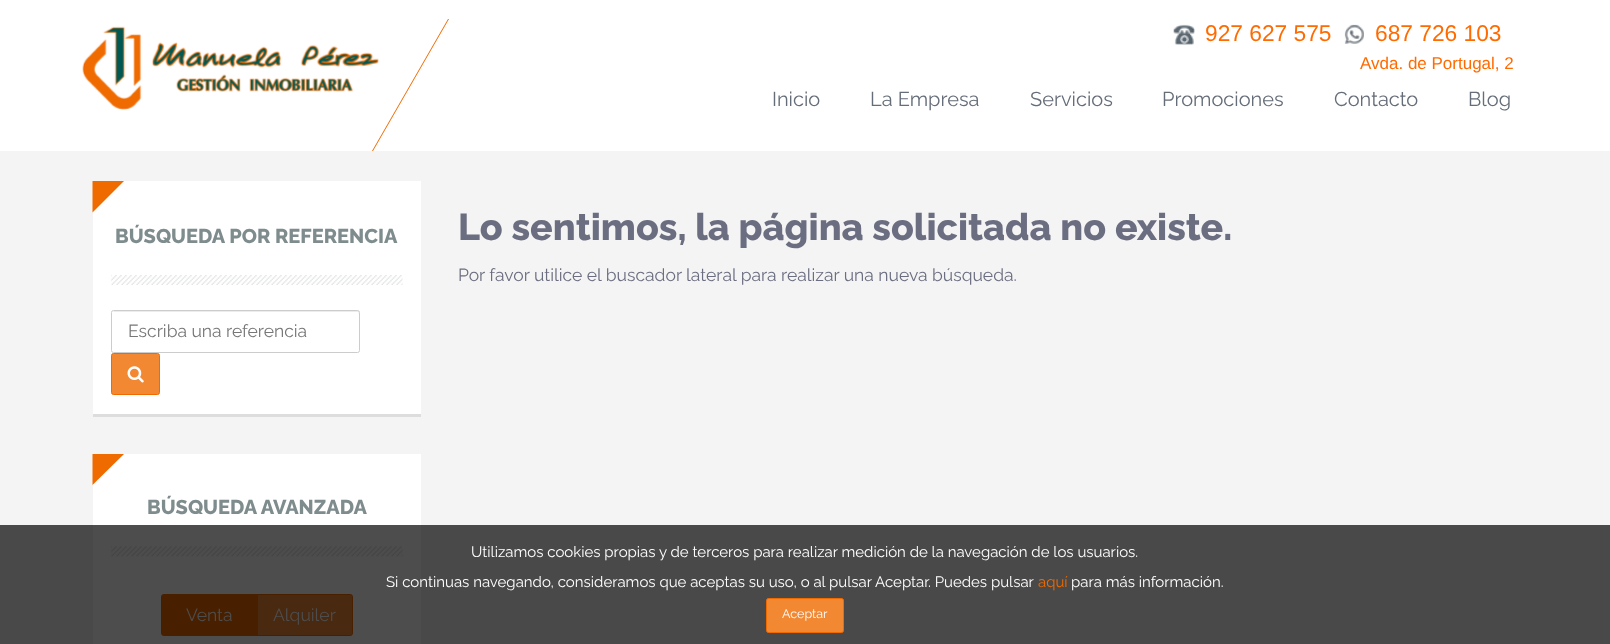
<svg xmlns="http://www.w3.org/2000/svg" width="1610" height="644">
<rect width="100%" height="100%" fill="#f4f4f4"/>
<rect width="1610" height="151" fill="#fff"/>
<image x="82" y="26" width="297" height="84" href="media/1.png"/>
<path d="M448 19h1l-76 132h-1z" fill="#ef6b00"/>
<image x="1173" y="24" width="22" height="21" href="media/2.png"/>
<text x="1205" y="41" style="font-family:Liberation Sans;font-size:22.75px;fill:#ff6b00">927 627 575</text>
<image x="1344" y="24" width="20" height="20" href="media/3.png"/>
<text x="1375" y="41" style="font-family:Liberation Sans;font-size:22.75px;fill:#ff6b00">687 726 103</text>
<text x="1360" y="69" style="font-family:Liberation Sans;font-size:17px;fill:#ff6b00">Avda. de Portugal, 2</text>
<text x="772" y="106" style="font-family:Raleway;font-size:20px;fill:#656d78">Inicio</text>
<text x="870" y="106" style="font-family:Raleway;font-size:20px;fill:#656d78">La Empresa</text>
<text x="1030" y="106" style="font-family:Raleway;font-size:20px;fill:#656d78">Servicios</text>
<text x="1162" y="106" style="font-family:Raleway;font-size:20px;fill:#656d78">Promociones</text>
<text x="1334" y="106" style="font-family:Raleway;font-size:20px;fill:#656d78">Contacto</text>
<text x="1468" y="106" style="font-family:Raleway;font-size:20px;fill:#656d78">Blog</text>
<rect y="525" width="1610" height="119" fill="#494949"/>
<rect x="93" y="181" width="328" height="233" fill="#fff"/>
<rect x="93" y="414" width="328" height="3" fill="#ddd"/>
<path d="M92.5 181h31.5l-31.5 31.5z" fill="#ef6b00"/>
<image x="111" y="275" width="292" height="10" href="media/4.png"/>
<text x="115" y="243" style="font-family:Raleway;font-size:20px;font-weight:800;fill:#7f8c8d">BÚSQUEDA POR REFERENCIA</text>
<path d="M114 312h244l1 2c0-1 0-3-1-3h-244l-1 1z" fill="#ececec"/>
<rect x="111.5" y="310.5" width="248" height="42" rx="2" fill="none" stroke="#ccc"/>
<text x="128" y="337" style="font-family:Raleway;font-size:17.5px;fill:#777">Escriba una referencia</text>
<rect x="111.5" y="353.5" width="48" height="41" rx="2" fill="#f38832" stroke="#ef6b00"/>
<image x="127" y="366" width="17" height="17" href="media/5.png"/>
<rect x="93" y="454" width="328" height="71" fill="#fff"/>
<rect x="93" y="525" width="328" height="119" fill="#4d4d4d"/>
<path d="M92.5 454h31.5l-31.5 31z" fill="#ef6b00"/>
<image x="111" y="546" width="292" height="11" href="media/6.png"/>
<text x="147" y="514" style="font-family:Raleway;font-size:20px;font-weight:800;fill:#7f8c8d">BÚSQUEDA AVANZADA</text>
<path d="M256.5 594.5h94c1 0 2 1 2 2v37c0 1-1 2-2 2h-94z" fill="#49290f" stroke="#482000"/>
<path d="M163.5 594.5h94v41h-94c-1 0-2-1-2-2v-37c0-1 1-2 2-2z" fill="#482000" stroke="#482000"/>
<text x="186" y="621" style="font-family:Raleway;font-size:17.5px;fill:#4d4d4d">Venta</text>
<text x="273" y="621" style="font-family:Raleway;font-size:17.5px;fill:#4d4d4d">Alquiler</text>
<text x="458" y="240" style="font-family:Raleway;font-size:37.5px;font-weight:800;fill:#6b6e80">Lo sentimos, la página solicitada no existe.</text>
<text x="458" y="281" style="font-family:Raleway;font-size:17.5px;fill:#6b6e80">Por favor utilice el buscador lateral para realizar una nueva búsqueda.</text>
<text x="471" y="557" style="font-family:Raleway;font-size:15px;fill:#fff">Utilizamos cookies propias y de terceros para realizar medición de la navegación de los usuarios.</text>
<text x="386" y="587" style="font-family:Raleway;font-size:15px;fill:#fff">Si continuas navegando, consideramos que aceptas su uso, o al pulsar Aceptar. Puedes pulsar</text>
<text x="1038" y="587" style="font-family:Raleway;font-size:15px;fill:#ef6b00">aquí</text>
<text x="1071" y="587" style="font-family:Raleway;font-size:15px;fill:#fff">para más información.</text>
<rect x="766.5" y="598.5" width="77" height="34" rx="2" fill="#f38832" stroke="#ef6b00"/>
<text x="782" y="618" style="font-family:Raleway;font-size:12.5px;fill:#fff">Aceptar</text>
</svg>
